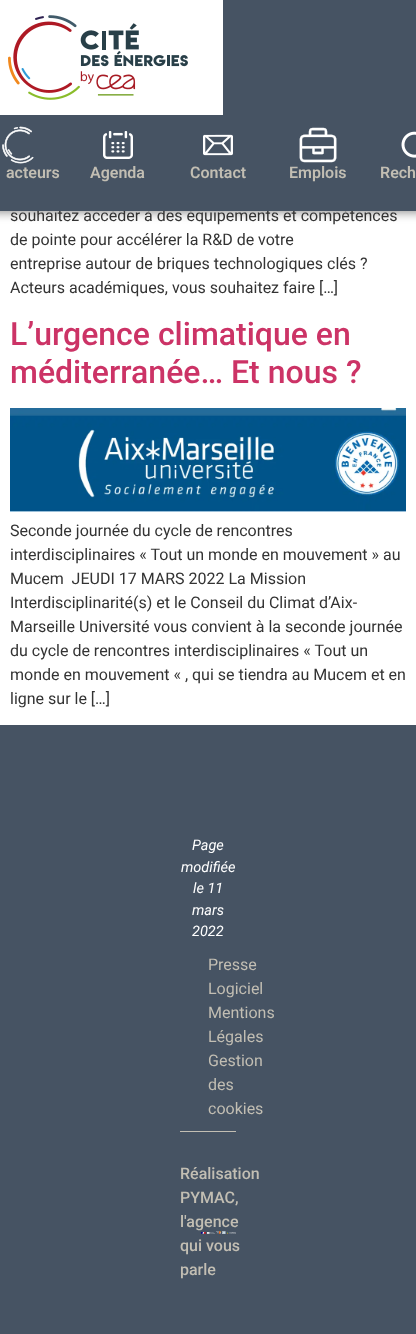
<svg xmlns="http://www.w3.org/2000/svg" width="416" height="1334">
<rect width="100%" height="100%" fill="#fff"/>
<rect x="-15" y="2" width="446" height="211" fill="#00000066" filter="blur(5px)"/>
<text x="10" y="221" style="font-family:Roboto;font-size:16px;fill:#333">souhaitez accéder à des équipements et compétences</text>
<rect width="416" height="211" fill="#465363"/>
<rect width="223" height="115" fill="#fff"/>
<image x="8" y="15" width="180" height="85" href="media/1.png"/>
<image x="2" y="126" width="32" height="38" href="media/2.png"/>
<text x="6" y="178" style="font-family:Roboto;font-size:16px;font-weight:600;fill:#c2beb3">acteurs</text>
<image x="103" y="131" width="30" height="28" href="media/3.png"/>
<text x="90" y="178" style="font-family:Roboto;font-size:16px;font-weight:600;fill:#c2beb3">Agenda</text>
<image x="203" y="134" width="30" height="22" href="media/4.png"/>
<text x="190" y="178" style="font-family:Roboto;font-size:16px;font-weight:600;fill:#c2beb3">Contact</text>
<image x="299" y="127" width="38" height="36" href="media/5.png"/>
<text x="289" y="178" style="font-family:Roboto;font-size:16px;font-weight:600;fill:#c2beb3">Emplois</text>
<image x="401" y="131" width="15" height="27" href="media/6.png"/>
<text x="380" y="178" style="font-family:Roboto;font-size:16px;font-weight:600;fill:#c2beb3">Rech</text>
<text x="10" y="245" style="font-family:Roboto;font-size:16px;fill:#333">de pointe pour accélérer la R&amp;D de votre</text>
<text x="10" y="269" style="font-family:Roboto;font-size:16px;fill:#333">entreprise autour de briques technologiques clés ?</text>
<text x="10" y="293" style="font-family:Roboto;font-size:16px;fill:#333">Acteurs académiques, vous souhaitez faire […]</text>
<text x="10" y="345" style="font-family:Roboto;font-size:32px;font-weight:500;fill:#c36">L’urgence climatique en</text>
<text x="10" y="383" style="font-family:Roboto;font-size:32px;font-weight:500;fill:#c36">méditerranée… Et nous ?</text>
<image x="10" y="408" width="396" height="104" href="media/7.png"/>
<text x="10" y="536" style="font-family:Roboto;font-size:16px;fill:#333">Seconde journée du cycle de rencontres</text>
<text x="10" y="560" style="font-family:Roboto;font-size:16px;fill:#333">interdisciplinaires « Tout un monde en mouvement » au</text>
<text x="10" y="584" style="font-family:Roboto;font-size:16px;fill:#333" xml:space="preserve">Mucem  JEUDI 17 MARS 2022 La Mission</text>
<text x="10" y="608" style="font-family:Roboto;font-size:16px;fill:#333">Interdisciplinarité(s) et le Conseil du Climat d’Aix-</text>
<text x="10" y="632" style="font-family:Roboto;font-size:16px;fill:#333">Marseille Université vous convient à la seconde journée</text>
<text x="10" y="656" style="font-family:Roboto;font-size:16px;fill:#333">du cycle de rencontres interdisciplinaires « Tout un</text>
<text x="10" y="680" style="font-family:Roboto;font-size:16px;fill:#333">monde en mouvement « , qui se tiendra au Mucem et en</text>
<text x="10" y="704" style="font-family:Roboto;font-size:16px;fill:#333">ligne sur le […]</text>
<rect y="725" width="416" height="609" fill="#465363"/>
<rect x="180" y="1131" width="56" height="1" fill="#c2beb3"/>
<text x="192" y="850" style="font-family:Roboto;font-size:14.5px;font-style:italic;fill:#fff">Page</text>
<text x="181" y="872" style="font-family:Roboto;font-size:14.5px;font-style:italic;fill:#fff">modifiée</text>
<text x="193" y="893" style="font-family:Roboto;font-size:14.5px;font-style:italic;fill:#fff">le 11</text>
<text x="192" y="915" style="font-family:Roboto;font-size:14.5px;font-style:italic;fill:#fff">mars</text>
<text x="192" y="936" style="font-family:Roboto;font-size:14.5px;font-style:italic;fill:#fff">2022</text>
<text x="208" y="970" style="font-family:Roboto;font-size:16px;fill:#c2beb3">Presse</text>
<text x="208" y="994" style="font-family:Roboto;font-size:16px;fill:#c2beb3">Logiciel</text>
<text x="208" y="1018" style="font-family:Roboto;font-size:16px;fill:#c2beb3">Mentions</text>
<text x="208" y="1042" style="font-family:Roboto;font-size:16px;fill:#c2beb3">Légales</text>
<text x="208" y="1066" style="font-family:Roboto;font-size:16px;fill:#c2beb3">Gestion</text>
<text x="208" y="1090" style="font-family:Roboto;font-size:16px;fill:#c2beb3">des</text>
<text x="208" y="1114" style="font-family:Roboto;font-size:16px;fill:#c2beb3">cookies</text>
<text x="180" y="1179" style="font-family:Roboto;font-size:16px;font-weight:500;fill:#c2beb3">Réalisation</text>
<text x="180" y="1203" style="font-family:Roboto;font-size:16px;font-weight:500;fill:#c2beb3">PYMAC,</text>
<text x="180" y="1227" style="font-family:Roboto;font-size:16px;font-weight:500;fill:#c2beb3">l'agence</text>
<text x="180" y="1251" style="font-family:Roboto;font-size:16px;font-weight:500;fill:#c2beb3">qui vous</text>
<text x="180" y="1275" style="font-family:Roboto;font-size:16px;font-weight:500;fill:#c2beb3">parle</text>
<image x="201" y="1231" width="35" height="3" href="media/8.png"/>
</svg>
